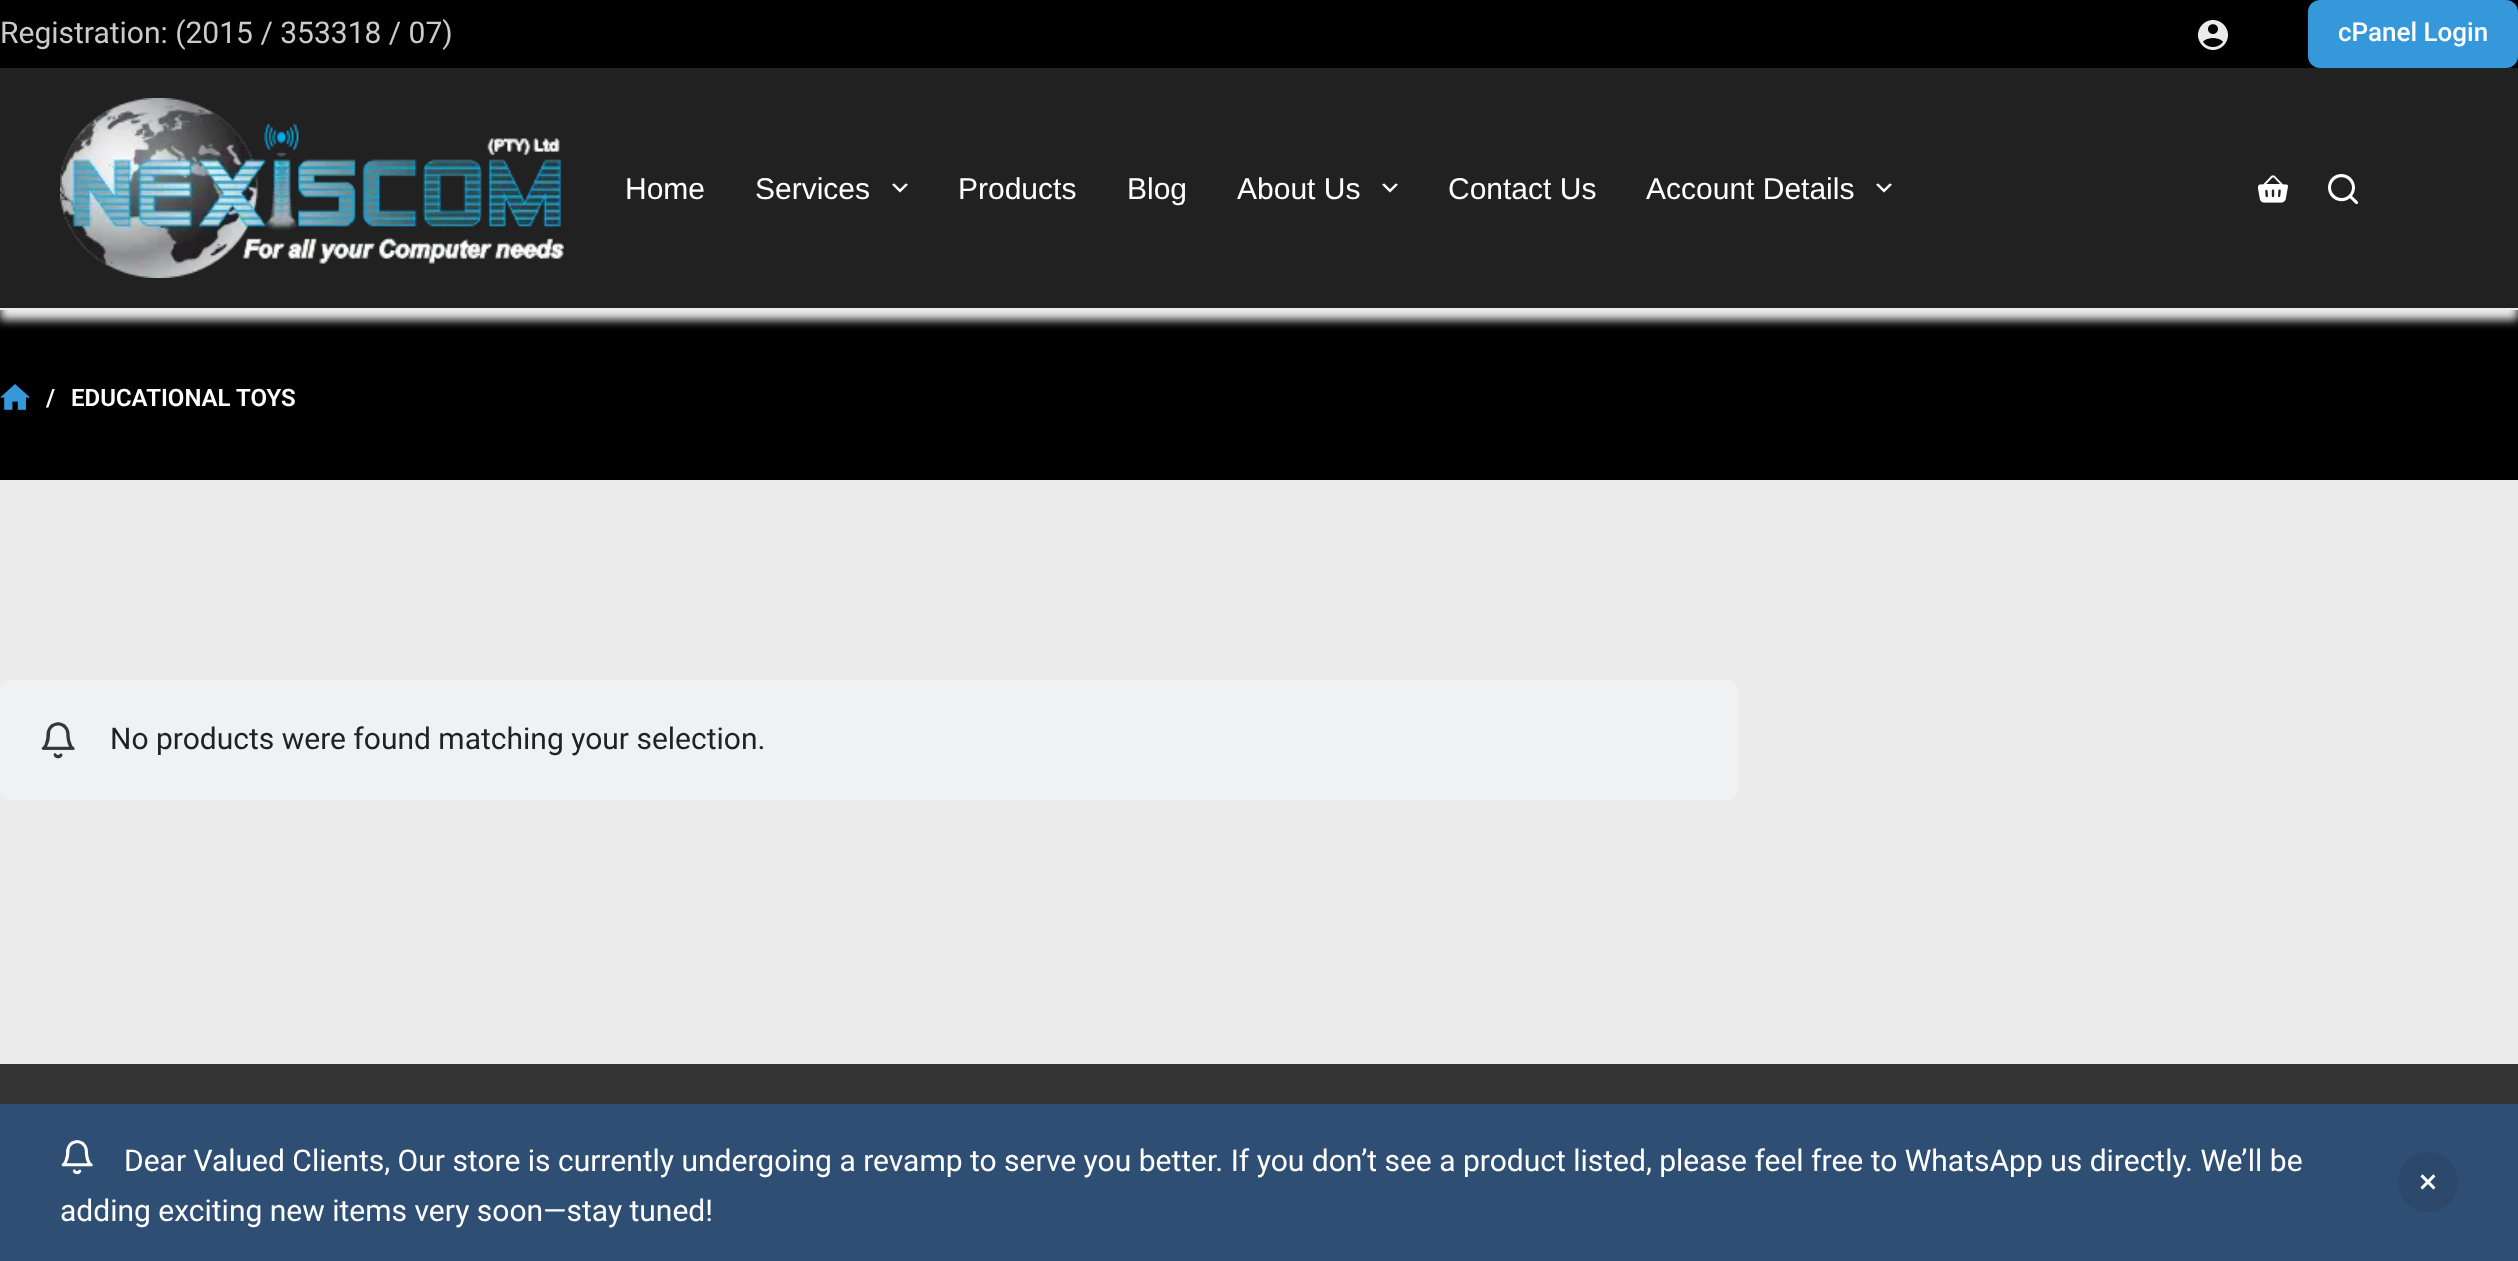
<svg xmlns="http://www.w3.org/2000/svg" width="2518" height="1261">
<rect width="100%" height="100%" fill="#ebebeb"/>
<rect y="310" width="2518" height="170" fill="#000"/>
<rect y="78" width="2518" height="242" fill="#ebebeb" filter="blur(5px)"/>
<rect width="2518" height="68" fill="#000"/>
<text x="0" y="43" style="font-family:Roboto;font-size:30px;fill:#cbcbcb">Registration: (2015 / 353318 / 07)</text>
<image x="2198" y="20" width="30" height="30" href="media/1.png"/>
<rect x="2308" width="210" height="68" rx="12" fill="#3498db"/>
<text x="2338" y="41" style="font-family:Roboto;font-size:26px;font-weight:500;fill:#fff">cPanel Login</text>
<rect y="68" width="2518" height="240" fill="#212121"/>
<image x="60" y="98" width="504" height="180" href="media/2.png"/>
<text x="625" y="199" style="font-family:Liberation Sans;font-size:30px;fill:#fff">Home</text>
<text x="755" y="199" style="font-family:Liberation Sans;font-size:30px;fill:#fff">Services</text>
<image x="892" y="183" width="16" height="10" href="media/3.png"/>
<text x="958" y="199" style="font-family:Liberation Sans;font-size:30px;fill:#fff">Products</text>
<text x="1127" y="199" style="font-family:Liberation Sans;font-size:30px;fill:#fff">Blog</text>
<text x="1237" y="199" style="font-family:Liberation Sans;font-size:30px;fill:#fff">About Us</text>
<image x="1382" y="183" width="16" height="10" href="media/3.png"/>
<text x="1448" y="199" style="font-family:Liberation Sans;font-size:30px;fill:#fff">Contact Us</text>
<text x="1646" y="199" style="font-family:Liberation Sans;font-size:30px;fill:#fff">Account Details</text>
<image x="1876" y="183" width="16" height="10" href="media/3.png"/>
<image x="2258" y="175" width="30" height="28" href="media/4.png"/>
<image x="2328" y="174" width="30" height="30" href="media/5.png"/>
<image x="0" y="384" width="30" height="26" href="media/6.png"/>
<text x="46" y="406" style="font-family:Roboto;font-size:24px;font-weight:600;fill:#fff">/</text>
<text x="71" y="406" style="font-family:Roboto;font-size:24px;font-weight:600;fill:#fff">EDUCATIONAL TOYS</text>
<rect y="680" width="1738" height="120" rx="10" fill="#f0f1f3"/>
<image x="41" y="722" width="34" height="37" href="media/7.png"/>
<text x="110" y="749" style="font-family:Roboto;font-size:30px;fill:#212121">No products were found matching your selection.</text>
<rect y="1064" width="2518" height="40" fill="#333"/>
<rect y="1104" width="2518" height="157" fill="#2f4e74"/>
<image x="61" y="1140" width="32" height="35" href="media/8.png"/>
<text x="124" y="1171" style="font-family:Roboto;font-size:30px;fill:#fff">Dear Valued Clients, Our store is currently undergoing a revamp to serve you better. If you don’t see a product listed, please feel free to WhatsApp us directly. We’ll be</text>
<circle cx="2428" cy="1182" r="30" fill="#2c496c"/>
<text x="2419" y="1193" style="font-family:Roboto;font-size:34px;fill:#fff">×</text>
<text x="60" y="1221" style="font-family:Roboto;font-size:30px;fill:#fff">adding exciting new items very soon—stay tuned!</text>
</svg>
